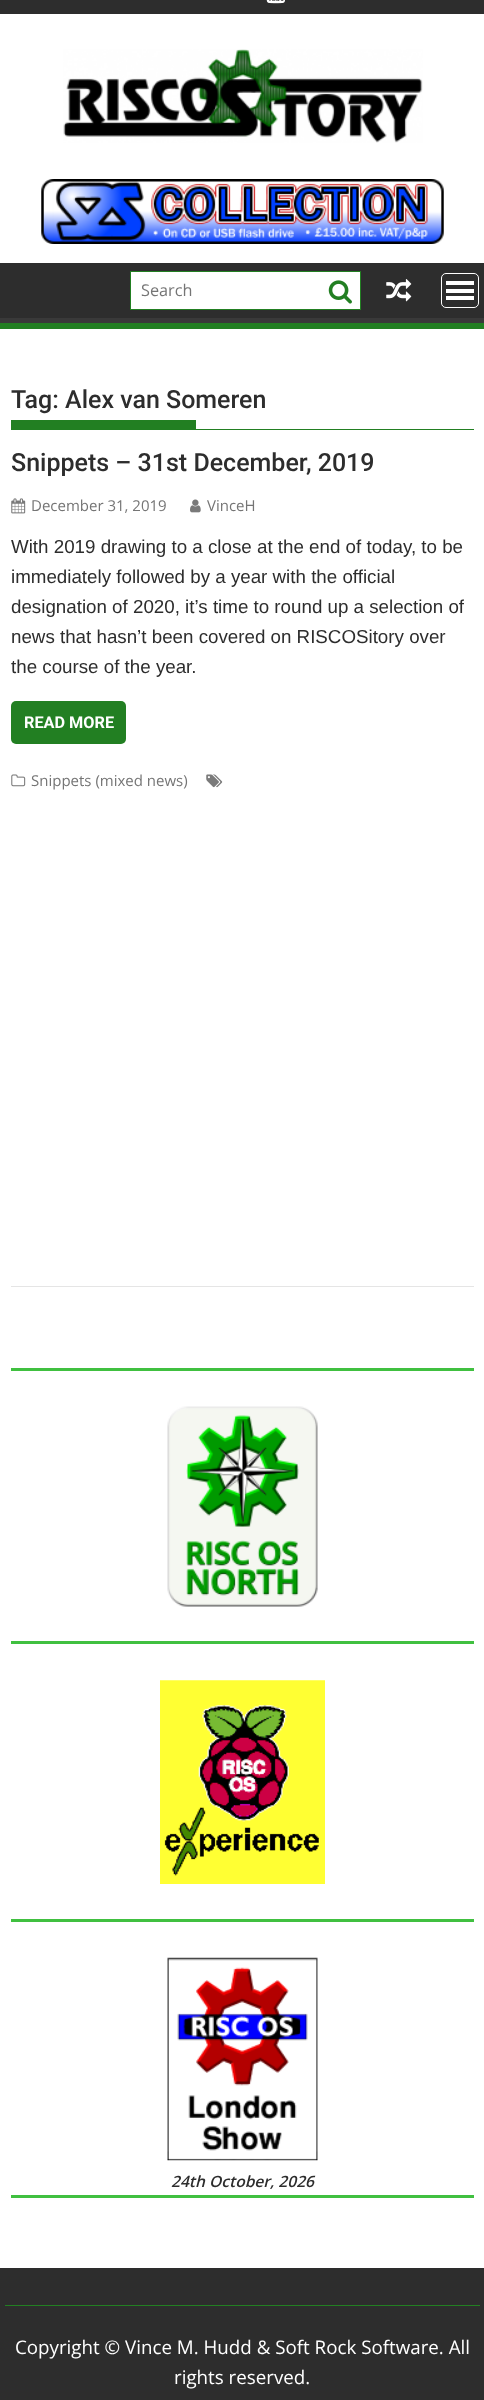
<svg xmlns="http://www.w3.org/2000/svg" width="484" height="2400">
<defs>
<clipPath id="clip1"><rect y="263" width="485" height="60"/></clipPath>
</defs>
<rect width="100%" height="100%" fill="#fff"/>
<rect width="484" height="14" fill="#2d2d2d"/>
<image x="266" y="0" width="19" height="4" href="media/1.png"/>
<image x="63" y="49" width="360" height="94" href="media/2.png"/>
<image x="41" y="179" width="403" height="65" href="media/3.png"/>
<rect y="263" width="484" height="55" fill="#2d2d2d"/>
<g clip-path="url(#clip1)">
<path d="M-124 139h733v307h-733zm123 116h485c0 0 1 1 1 1v60c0 1-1 2-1 2h-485c-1 0-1-1-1-2v-60c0 0 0-1 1-1z" fill="#393939" fill-rule="evenodd"/>
</g>
<rect y="323" width="484" height="6" fill="#227f22"/>
<rect x="130.5" y="271.5" width="230" height="38" fill="#fff" stroke="#227f22"/>
<text x="141" y="296" style="font-family:Open Sans;font-size:16.25px;fill:#757575">Search</text>
<image x="328" y="280" width="24" height="24" href="media/4.png"/>
<image x="386" y="279" width="26" height="23" href="media/5.png"/>
<rect x="441.5" y="273.5" width="37" height="34" rx="4.5" fill="none" stroke="#fff"/>
<rect x="446" y="296" width="28" height="4" fill="#fff"/>
<rect x="446" y="289" width="28" height="4" fill="#fff"/>
<rect x="446" y="281" width="28" height="4" fill="#fff"/>
<rect x="11" y="429" width="463" height="1" fill="#227f22"/>
<text x="11" y="408" style="font-family:Roboto;font-size:25px;font-weight:500;fill:#2d2d2d">Tag: Alex van Someren</text>
<rect x="11" y="420" width="185" height="9" fill="#227f22"/>
<rect x="11" y="1286" width="463" height="1" fill="#e5e5e5"/>
<text x="11" y="471" style="font-family:Roboto;font-size:25px;font-weight:500;fill:#2d2d2d">Snippets – 31st December, 2019</text>
<image x="11" y="498" width="15" height="16" href="media/6.png"/>
<text x="31" y="511" style="font-family:Open Sans;font-size:15px;fill:#757575">December 31, 2019</text>
<image x="190" y="499" width="11" height="14" href="media/7.png"/>
<text x="207" y="511" style="font-family:Open Sans;font-size:15px;fill:#757575">VinceH</text>
<text x="11" y="553" style="font-family:Liberation Sans;font-size:18.75px;fill:#2d2d2d">With 2019 drawing to a close at the end of today, to be</text>
<text x="11" y="583" style="font-family:Liberation Sans;font-size:18.75px;fill:#2d2d2d">immediately followed by a year with the official</text>
<text x="11" y="613" style="font-family:Liberation Sans;font-size:18.75px;fill:#2d2d2d">designation of 2020, it’s time to round up a selection of</text>
<text x="11" y="643" style="font-family:Liberation Sans;font-size:18.75px;fill:#2d2d2d">news that hasn’t been covered on RISCOSitory over</text>
<text x="11" y="673" style="font-family:Liberation Sans;font-size:18.75px;fill:#2d2d2d">the course of the year.</text>
<rect x="11" y="701" width="115" height="43" rx="5" fill="#227f22"/>
<text x="24" y="728" style="font-family:Roboto;font-size:16.25px;font-weight:bold;fill:#fff">READ MORE</text>
<image x="11" y="774" width="15" height="13" href="media/8.png"/>
<text x="31" y="786" style="font-family:Open Sans;font-size:15px;fill:#757575">Snippets (mixed news)</text>
<image x="206" y="774" width="17" height="14" href="media/9.png"/>
<rect x="11" y="1368" width="463" height="3" fill="#40c040"/>
<rect x="11" y="1641" width="463" height="3" fill="#40c040"/>
<image x="167" y="1406" width="151" height="201" href="media/10.png"/>
<rect x="11" y="1919" width="463" height="3" fill="#40c040"/>
<image x="160" y="1680" width="165" height="204" href="media/11.png"/>
<rect x="11" y="2195" width="463" height="3" fill="#40c040"/>
<image x="167" y="1957" width="151" height="204" href="media/12.png"/>
<text x="171" y="2187" style="font-family:Open Sans;font-size:15.6px;font-weight:600;font-style:italic;fill:#2d2d2d">24th October, 2026</text>
<rect y="2268" width="484" height="132" fill="#2d2d2d"/>
<rect x="5" y="2305" width="475" height="1" fill="#227f22"/>
<text x="15" y="2354" style="font-family:Open Sans;font-size:18.75px;fill:#fff">Copyright © Vince M. Hudd &amp; Soft Rock Software. All</text>
<text x="174" y="2384" style="font-family:Open Sans;font-size:18.75px;fill:#fff">rights reserved.</text>
</svg>
